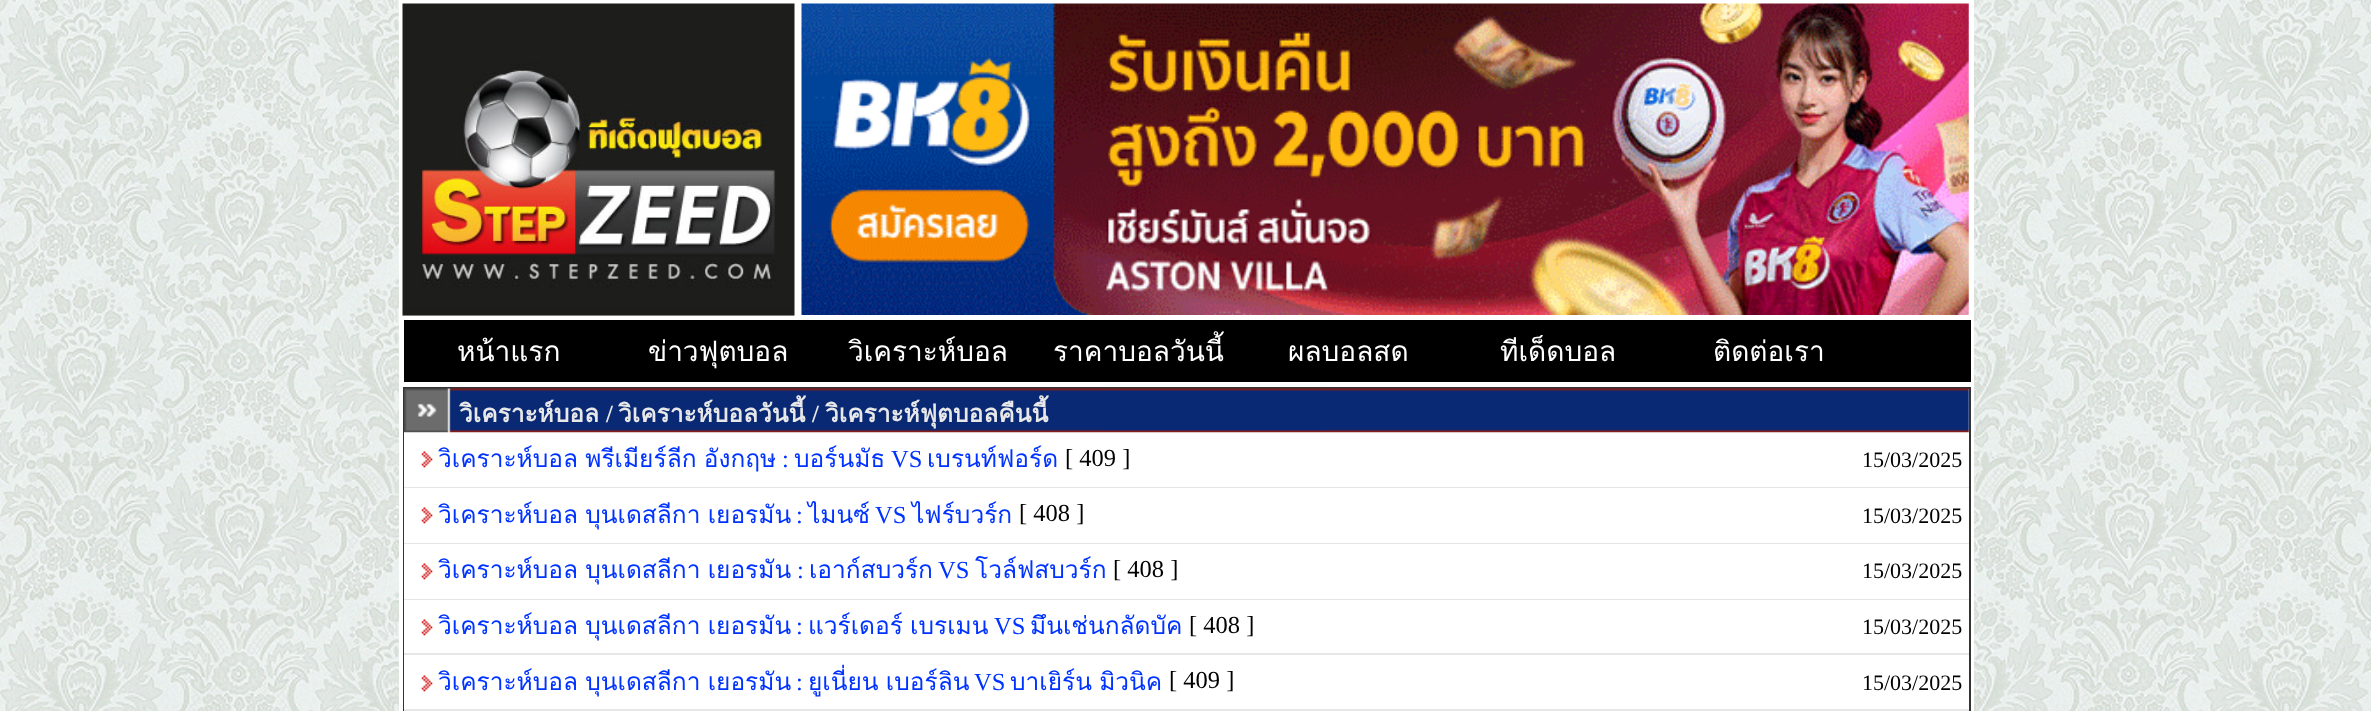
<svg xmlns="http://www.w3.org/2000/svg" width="2371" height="711">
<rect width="100%" height="100%" fill="#fff"/>
<image x="0" y="0" width="2371" height="711" href="media/1.png"/>
<rect x="399" width="1575" height="711" fill="#fff"/>
<image x="402" y="3" width="393" height="313" href="media/2.png"/>
<image x="801" y="3" width="1168" height="312" href="media/3.png"/>
<rect x="404" y="320" width="1567" height="62" fill="#000"/>
<text x="457" y="361" style="font-family:Loma;font-size:28px;fill:#fff">หน้าแรก</text>
<text x="648" y="361" style="font-family:Loma;font-size:28px;fill:#fff">ข่าวฟุตบอล</text>
<text x="848" y="361" style="font-family:Loma;font-size:28px;fill:#fff">วิเคราะห์บอล</text>
<text x="1053" y="361" style="font-family:Loma;font-size:28px;fill:#fff">ราคาบอลวันนี้</text>
<text x="1288" y="361" style="font-family:Loma;font-size:28px;fill:#fff">ผลบอลสด</text>
<text x="1500" y="361" style="font-family:Loma;font-size:28px;fill:#fff">ทีเด็ดบอล</text>
<text x="1713" y="361" style="font-family:Loma;font-size:28px;fill:#fff">ติดต่อเรา</text>
<rect x="404" y="388" width="1566" height="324" fill="none" stroke="#333" stroke-width="2"/>
<rect x="404" y="432" width="1" height="55" fill="#fff"/>
<image x="404" y="388" width="1565" height="45" href="media/4.png"/>
<text x="459" y="422" style="font-family:Loma;font-size:24.5px;font-weight:bold;fill:#e8e8e8">วิเคราะห์บอล</text>
<text x="606" y="422" style="font-family:Liberation Serif;font-size:24.5px;font-weight:bold;fill:#e8e8e8">/</text>
<text x="618" y="422" style="font-family:Loma;font-size:24.5px;font-weight:bold;fill:#e8e8e8">วิเคราะห์บอลวันนี้</text>
<text x="812" y="422" style="font-family:Liberation Serif;font-size:24.5px;font-weight:bold;fill:#e8e8e8">/</text>
<text x="825" y="422" style="font-family:Loma;font-size:24.5px;font-weight:bold;fill:#e8e8e8">วิเคราะห์ฟุตบอลคืนนี้</text>
<rect x="404" y="487" width="1565" height="1" fill="#e6e6e6"/>
<image x="421" y="451" width="12" height="17" href="media/5.png"/>
<text x="438" y="467" word-spacing="-1" style="font-family:Loma;font-size:24.5px;fill:#03f">วิเคราะห์บอล พรีเมียร์ลีก อังกฤษ</text>
<text x="794" y="467" style="font-family:Loma;font-size:24.5px;fill:#03f">บอร์นมัธ</text>
<text x="891" y="467" style="font-family:Liberation Serif;font-size:24.5px;fill:#03f">VS</text>
<text x="927" y="467" style="font-family:Loma;font-size:24.5px;fill:#03f">เบรนท์ฟอร์ด</text>
<text x="1065" y="466" style="font-family:Liberation Serif;font-size:24.5px;fill:#000">[ 409 ]</text>
<text x="782" y="467" style="font-family:Liberation Serif;font-size:24.5px;fill:#03f">:</text>
<text x="1862" y="467" style="font-family:Liberation Serif;font-size:22px;fill:#000">15/03/2025</text>
<rect x="404" y="488" width="1" height="55" fill="#fff"/>
<rect x="404" y="543" width="1565" height="1" fill="#e6e6e6"/>
<image x="421" y="507" width="12" height="17" href="media/5.png"/>
<text x="438" y="523" word-spacing="-1" style="font-family:Loma;font-size:24.5px;fill:#03f">วิเคราะห์บอล บุนเดสลีกา เยอรมัน</text>
<text x="808" y="523" style="font-family:Loma;font-size:24.5px;fill:#03f">ไมนซ์</text>
<text x="875" y="523" style="font-family:Liberation Serif;font-size:24.5px;fill:#03f">VS</text>
<text x="912" y="523" style="font-family:Loma;font-size:24.5px;fill:#03f">ไฟร์บวร์ก</text>
<text x="1019" y="521" style="font-family:Liberation Serif;font-size:24.5px;fill:#000">[ 408 ]</text>
<text x="796" y="523" style="font-family:Liberation Serif;font-size:24.5px;fill:#03f">:</text>
<text x="1862" y="523" style="font-family:Liberation Serif;font-size:22px;fill:#000">15/03/2025</text>
<rect x="404" y="544" width="1" height="55" fill="#fff"/>
<rect x="404" y="599" width="1565" height="1" fill="#e6e6e6"/>
<image x="421" y="563" width="12" height="17" href="media/5.png"/>
<text x="438" y="578" word-spacing="-1" style="font-family:Loma;font-size:24.5px;fill:#03f">วิเคราะห์บอล บุนเดสลีกา เยอรมัน</text>
<text x="809" y="578" style="font-family:Loma;font-size:24.5px;fill:#03f">เอาก์สบวร์ก</text>
<text x="938" y="578" style="font-family:Liberation Serif;font-size:24.5px;fill:#03f">VS</text>
<text x="975" y="578" style="font-family:Loma;font-size:24.5px;fill:#03f">โวล์ฟสบวร์ก</text>
<text x="1113" y="577" style="font-family:Liberation Serif;font-size:24.5px;fill:#000">[ 408 ]</text>
<text x="797" y="578" style="font-family:Liberation Serif;font-size:24.5px;fill:#03f">:</text>
<text x="1862" y="578" style="font-family:Liberation Serif;font-size:22px;fill:#000">15/03/2025</text>
<rect x="404" y="600" width="1" height="53" fill="#fff"/>
<rect x="404" y="653" width="1565" height="2" fill="#e6e6e6"/>
<image x="421" y="619" width="12" height="17" href="media/5.png"/>
<text x="438" y="634" word-spacing="-1" style="font-family:Loma;font-size:24.5px;fill:#03f">วิเคราะห์บอล บุนเดสลีกา เยอรมัน</text>
<text x="808" y="634" word-spacing="-1" style="font-family:Loma;font-size:24.5px;fill:#03f">แวร์เดอร์ เบรเมน</text>
<text x="994" y="634" style="font-family:Liberation Serif;font-size:24.5px;fill:#03f">VS</text>
<text x="1030" y="634" style="font-family:Loma;font-size:24.5px;fill:#03f">มึนเช่นกลัดบัค</text>
<text x="1189" y="633" style="font-family:Liberation Serif;font-size:24.5px;fill:#000">[ 408 ]</text>
<text x="796" y="634" style="font-family:Liberation Serif;font-size:24.5px;fill:#03f">:</text>
<text x="1862" y="634" style="font-family:Liberation Serif;font-size:22px;fill:#000">15/03/2025</text>
<rect x="404" y="655" width="1" height="54" fill="#fff"/>
<rect x="404" y="709" width="1565" height="2" fill="#e6e6e6"/>
<image x="421" y="675" width="12" height="17" href="media/5.png"/>
<text x="438" y="690" word-spacing="-1" style="font-family:Loma;font-size:24.5px;fill:#03f">วิเคราะห์บอล บุนเดสลีกา เยอรมัน</text>
<text x="796" y="690" style="font-family:Liberation Serif;font-size:24.5px;fill:#03f">:</text>
<text x="808" y="690" word-spacing="-1" style="font-family:Loma;font-size:24.5px;fill:#03f">ยูเนี่ยน เบอร์ลิน</text>
<text x="974" y="690" style="font-family:Liberation Serif;font-size:24.5px;fill:#03f">VS</text>
<text x="1010" y="690" word-spacing="-1" style="font-family:Loma;font-size:24.5px;fill:#03f">บาเยิร์น มิวนิค</text>
<text x="1169" y="688" style="font-family:Liberation Serif;font-size:24.5px;fill:#000">[ 409 ]</text>
<text x="1862" y="690" style="font-family:Liberation Serif;font-size:22px;fill:#000">15/03/2025</text>
</svg>
